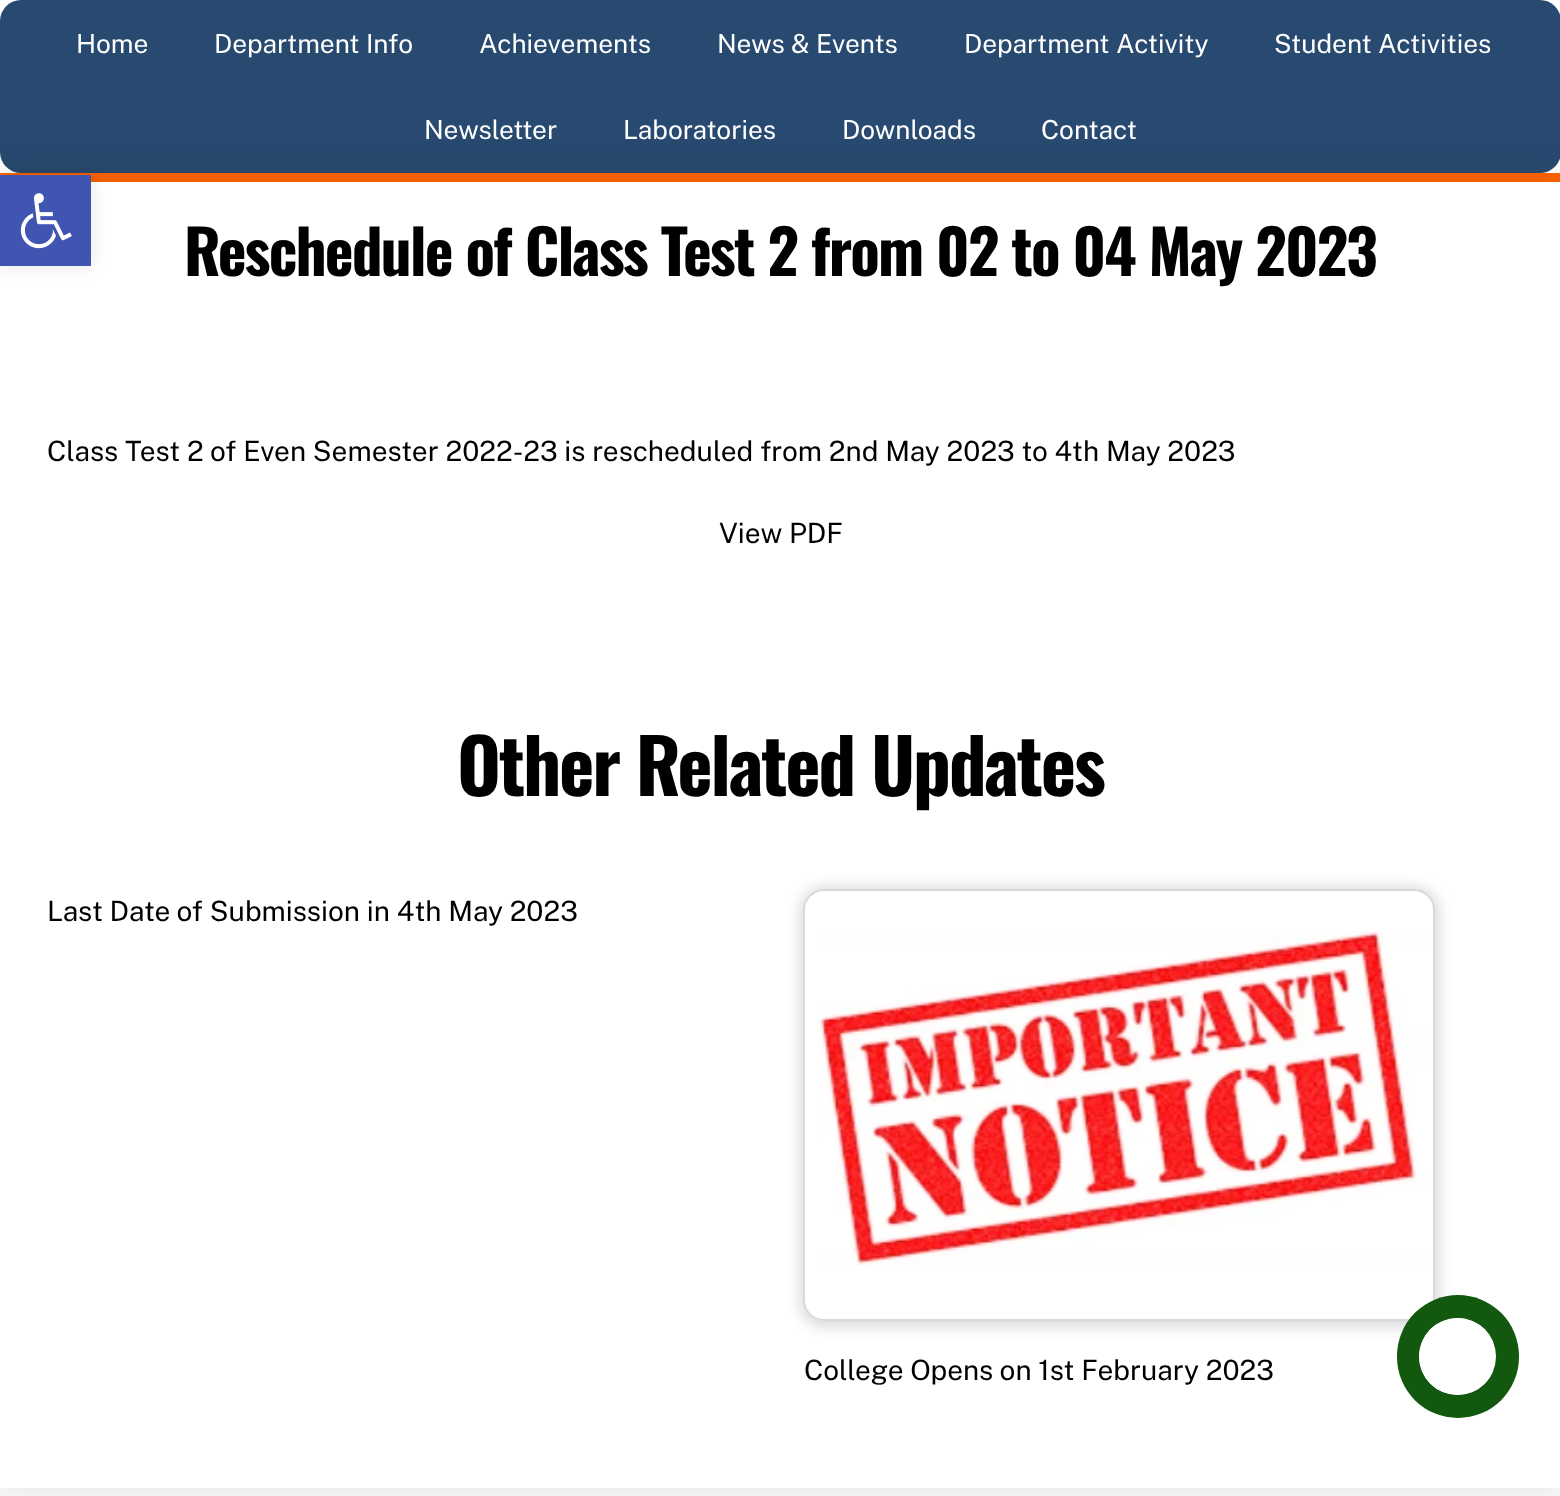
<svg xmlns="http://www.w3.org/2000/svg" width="1560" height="1496">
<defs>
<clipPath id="clip1"><path d="M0 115h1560v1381h-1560zm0 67h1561v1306h-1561z" clip-rule="evenodd"/></clipPath>
<clipPath id="clip2"><rect x="1419" y="1318" width="77" height="77" rx="38.5"/></clipPath>
</defs>
<rect width="100%" height="100%" fill="#fff"/>
<rect y="173" width="1560" height="9" fill="#fe6500"/>
<rect width="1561" height="173" rx="21" fill="#294a70"/>
<text x="76" y="53" style="font-family:Public Sans;font-size:26.25px;fill:#fff">Home</text>
<text x="214" y="53" style="font-family:Public Sans;font-size:26.25px;fill:#fff">Department Info</text>
<text x="479" y="53" style="font-family:Public Sans;font-size:26.25px;fill:#fff">Achievements</text>
<text x="717" y="53" style="font-family:Public Sans;font-size:26.25px;fill:#fff">News &amp; Events</text>
<text x="964" y="53" style="font-family:Public Sans;font-size:26.25px;fill:#fff">Department Activity</text>
<text x="1274" y="53" style="font-family:Public Sans;font-size:26.25px;fill:#fff">Student Activities</text>
<text x="424" y="139" style="font-family:Public Sans;font-size:26.25px;fill:#fff">Newsletter</text>
<text x="623" y="139" style="font-family:Public Sans;font-size:26.25px;fill:#fff">Laboratories</text>
<text x="842" y="139" style="font-family:Public Sans;font-size:26.25px;fill:#fff">Downloads</text>
<text x="1041" y="139" style="font-family:Public Sans;font-size:26.25px;fill:#fff">Contact</text>
<g clip-path="url(#clip1)">
<rect x="-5" y="182" width="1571" height="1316" fill="#0000001a" filter="blur(22px)"/>
</g>
<text x="184" y="276" style="font-family:Oswald;font-size:61.25px;font-weight:bold;letter-spacing:-1.85px;fill:#000">Reschedule of Class Test 2 from 02 to 04 May 2023</text>
<text x="47" y="461" style="font-family:Public Sans;font-size:28px;fill:#000">Class Test 2 of Even Semester 2022-23 is rescheduled from 2nd May 2023 to 4th May 2023</text>
<text x="719" y="543" style="font-family:Public Sans;font-size:28px;fill:#000">View PDF</text>
<text x="457" y="796" style="font-family:Oswald;font-size:75.25px;font-weight:bold;letter-spacing:-2.25px;fill:#000">Other Related Updates</text>
<text x="47" y="921" style="font-family:Public Sans;font-size:28px;fill:#000">Last Date of Submission in 4th May 2023</text>
<rect x="800" y="887" width="639" height="440" rx="25" fill="#00000026" filter="blur(7px)"/>
<rect x="803" y="889" width="632" height="432" rx="21" fill="#fff"/>
<rect x="804" y="890" width="630" height="430" rx="20" fill="none" stroke="#00000026" stroke-width="2"/>
<image x="817" y="931" width="608" height="334" href="media/1.png"/>
<text x="804" y="1380" style="font-family:Public Sans;font-size:28px;fill:#000">College Opens on 1st February 2023</text>
<rect y="175" width="91" height="91" fill="#0000001a" filter="blur(9px)"/>
<rect y="175" width="91" height="91" fill="#4054b2"/>
<image x="20" y="193" width="52" height="56" href="media/2.png"/>
<rect x="1397" y="1295" width="122" height="123" rx="61" fill="#12580f"/>
<circle cx="1457.5" cy="1356.5" r="38.5" fill="#fff"/>
<g clip-path="url(#clip2)">
<path d="M1457.5 1318h35.5v77h-35.5c-21.5 0-38.5-17-38.5-38.5c0-21.5 17-38.5 38.5-38.5z" fill="#fff"/>
</g>
</svg>
